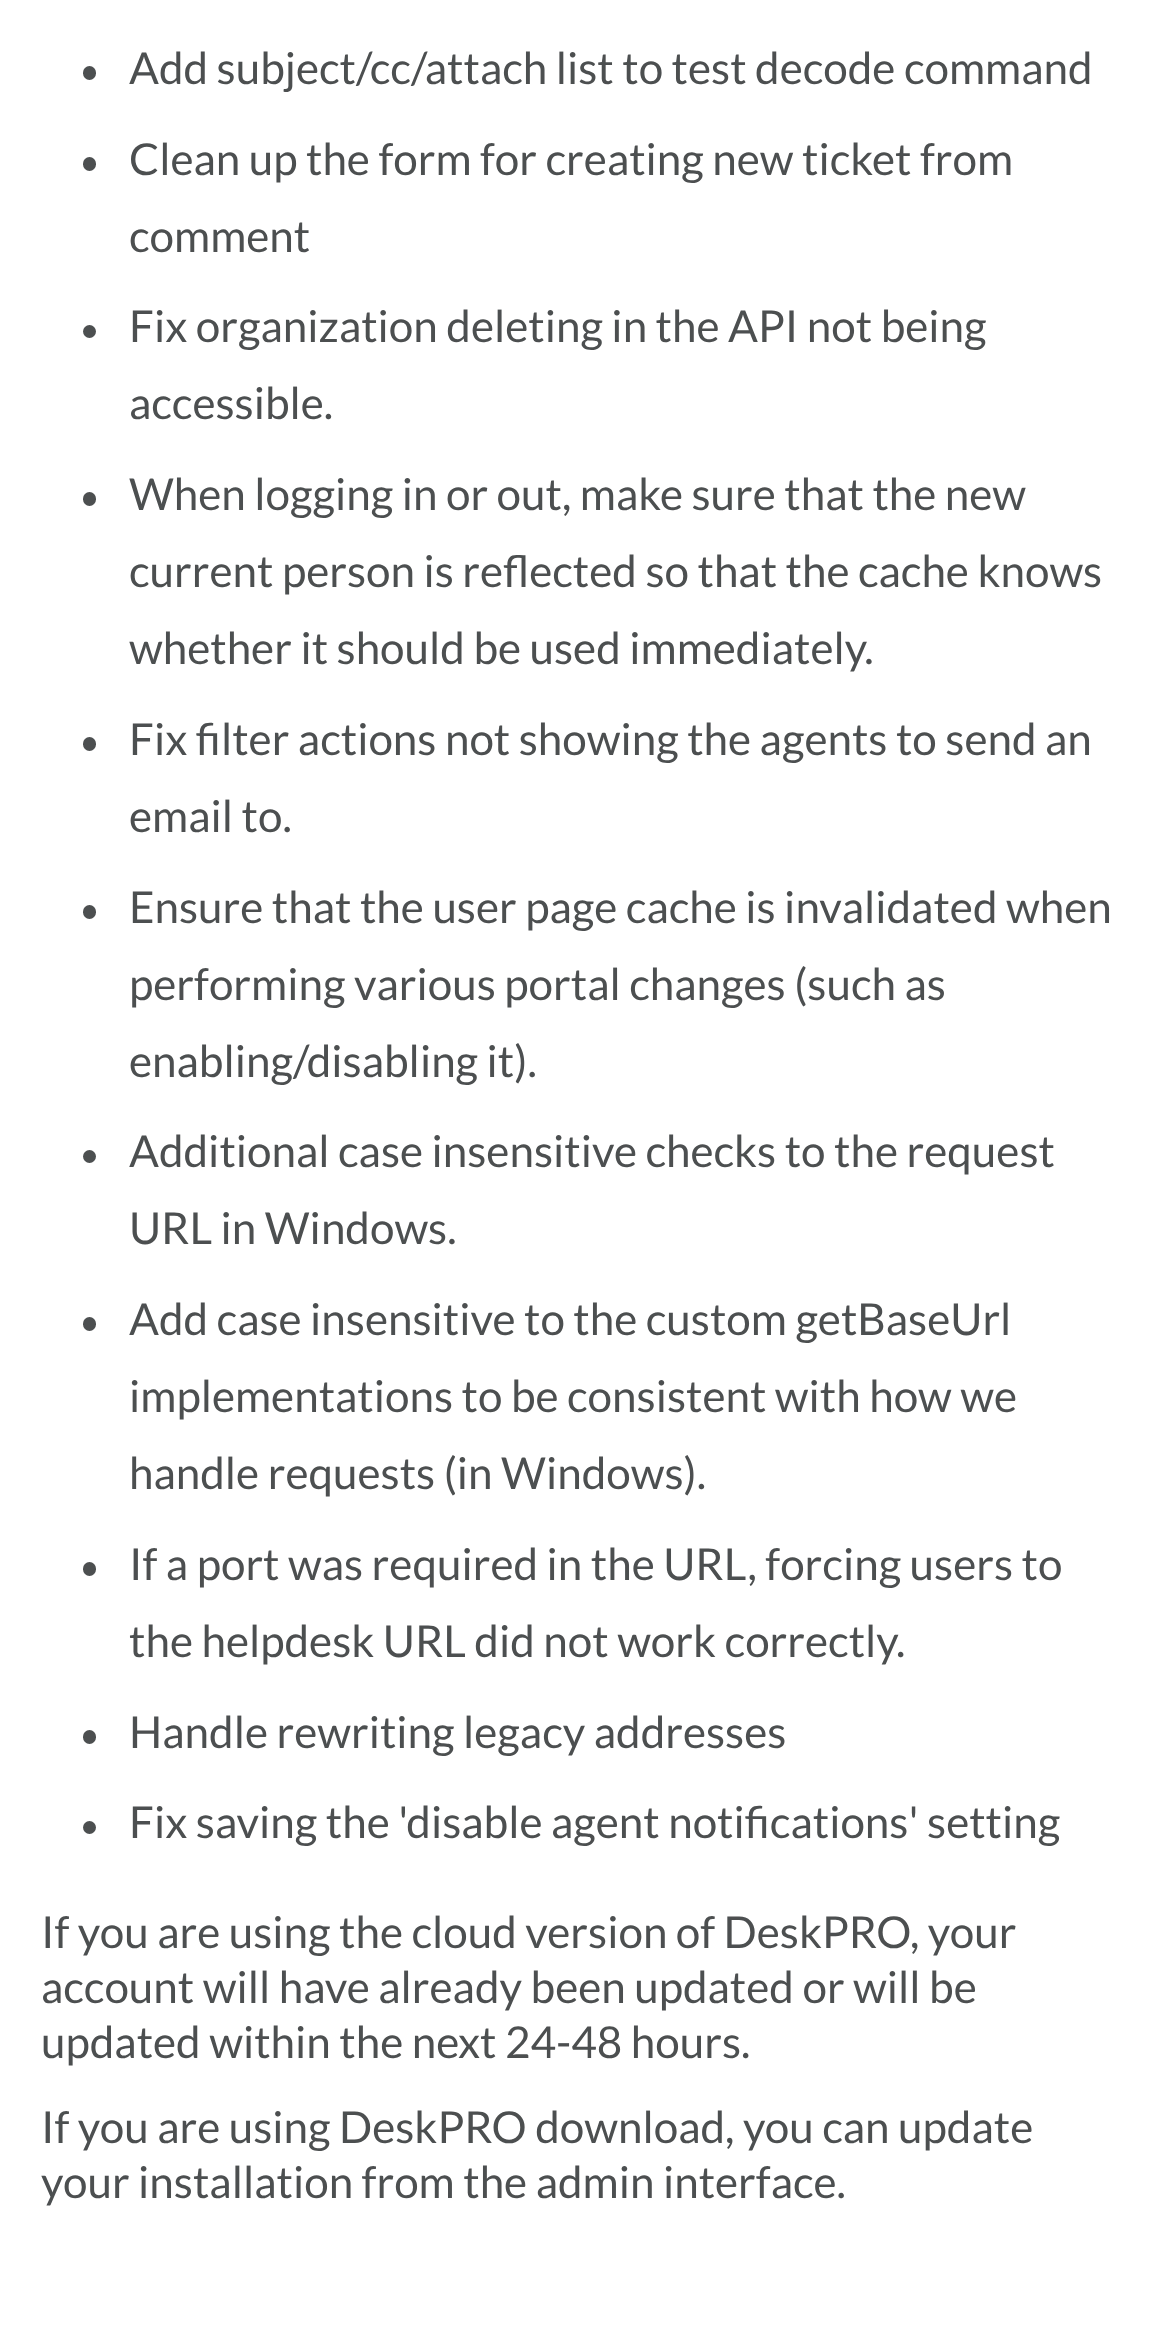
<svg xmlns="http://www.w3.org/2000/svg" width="1154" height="2342">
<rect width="100%" height="100%" fill="#fff"/>
<rect x="83" y="66" width="13" height="14" rx="6.5" fill="#4c4f50"/>
<text x="129" y="84" style="font-family:Lato;font-size:44px;fill:#4c4f50">Add subject/cc/attach list to test decode command</text>
<rect x="83" y="157" width="13" height="14" rx="6.5" fill="#4c4f50"/>
<text x="129" y="175" style="font-family:Lato;font-size:44px;fill:#4c4f50">Clean up the form for creating new ticket from</text>
<text x="129" y="252" style="font-family:Lato;font-size:44px;fill:#4c4f50">comment</text>
<circle cx="89.5" cy="331.5" r="6.5" fill="#4c4f50"/>
<text x="129" y="342" style="font-family:Lato;font-size:44px;fill:#4c4f50">Fix organization deleting in the API not being</text>
<text x="129" y="419" style="font-family:Lato;font-size:44px;fill:#4c4f50">accessible.</text>
<rect x="83" y="492" width="13" height="14" rx="6.5" fill="#4c4f50"/>
<text x="129" y="510" style="font-family:Lato;font-size:44px;fill:#4c4f50">When logging in or out, make sure that the new</text>
<text x="129" y="587" style="font-family:Lato;font-size:44px;fill:#4c4f50">current person is reflected so that the cache knows</text>
<text x="129" y="664" style="font-family:Lato;font-size:44px;fill:#4c4f50">whether it should be used immediately.</text>
<rect x="83" y="737" width="13" height="14" rx="6.5" fill="#4c4f50"/>
<text x="129" y="755" style="font-family:Lato;font-size:44px;fill:#4c4f50">Fix filter actions not showing the agents to send an</text>
<text x="129" y="832" style="font-family:Lato;font-size:44px;fill:#4c4f50">email to.</text>
<rect x="83" y="905" width="13" height="14" rx="6.5" fill="#4c4f50"/>
<text x="129" y="923" style="font-family:Lato;font-size:44px;fill:#4c4f50">Ensure that the user page cache is invalidated when</text>
<text x="129" y="1000" style="font-family:Lato;font-size:44px;fill:#4c4f50">performing various portal changes (such as</text>
<text x="129" y="1077" style="font-family:Lato;font-size:44px;fill:#4c4f50">enabling/disabling it).</text>
<circle cx="89.5" cy="1156.5" r="6.5" fill="#4c4f50"/>
<text x="129" y="1167" style="font-family:Lato;font-size:44px;fill:#4c4f50">Additional case insensitive checks to the request</text>
<text x="129" y="1244" style="font-family:Lato;font-size:44px;fill:#4c4f50">URL in Windows.</text>
<rect x="83" y="1317" width="13" height="14" rx="6.5" fill="#4c4f50"/>
<text x="129" y="1335" style="font-family:Lato;font-size:44px;fill:#4c4f50">Add case insensitive to the custom getBaseUrl</text>
<text x="129" y="1412" style="font-family:Lato;font-size:44px;fill:#4c4f50">implementations to be consistent with how we</text>
<text x="129" y="1489" style="font-family:Lato;font-size:44px;fill:#4c4f50">handle requests (in Windows).</text>
<rect x="83" y="1562" width="13" height="14" rx="6.5" fill="#4c4f50"/>
<text x="129" y="1580" style="font-family:Lato;font-size:44px;fill:#4c4f50">If a port was required in the URL, forcing users to</text>
<text x="129" y="1657" style="font-family:Lato;font-size:44px;fill:#4c4f50">the helpdesk URL did not work correctly.</text>
<rect x="83" y="1730" width="13" height="14" rx="6.5" fill="#4c4f50"/>
<text x="129" y="1748" style="font-family:Lato;font-size:44px;fill:#4c4f50">Handle rewriting legacy addresses</text>
<circle cx="89.5" cy="1827.5" r="6.5" fill="#4c4f50"/>
<text x="129" y="1838" style="font-family:Lato;font-size:44px;fill:#4c4f50">Fix saving the 'disable agent notifications' setting</text>
<text x="41" y="1948" style="font-family:Lato;font-size:44px;fill:#4c4f50">If you are using the cloud version of DeskPRO, your</text>
<text x="41" y="2003" style="font-family:Lato;font-size:44px;fill:#4c4f50">account will have already been updated or will be</text>
<text x="41" y="2058" style="font-family:Lato;font-size:44px;fill:#4c4f50">updated within the next 24-48 hours.</text>
<text x="41" y="2143" style="font-family:Lato;font-size:44px;fill:#4c4f50">If you are using DeskPRO download, you can update</text>
<text x="41" y="2198" style="font-family:Lato;font-size:44px;fill:#4c4f50">your installation from the admin interface.</text>
</svg>
